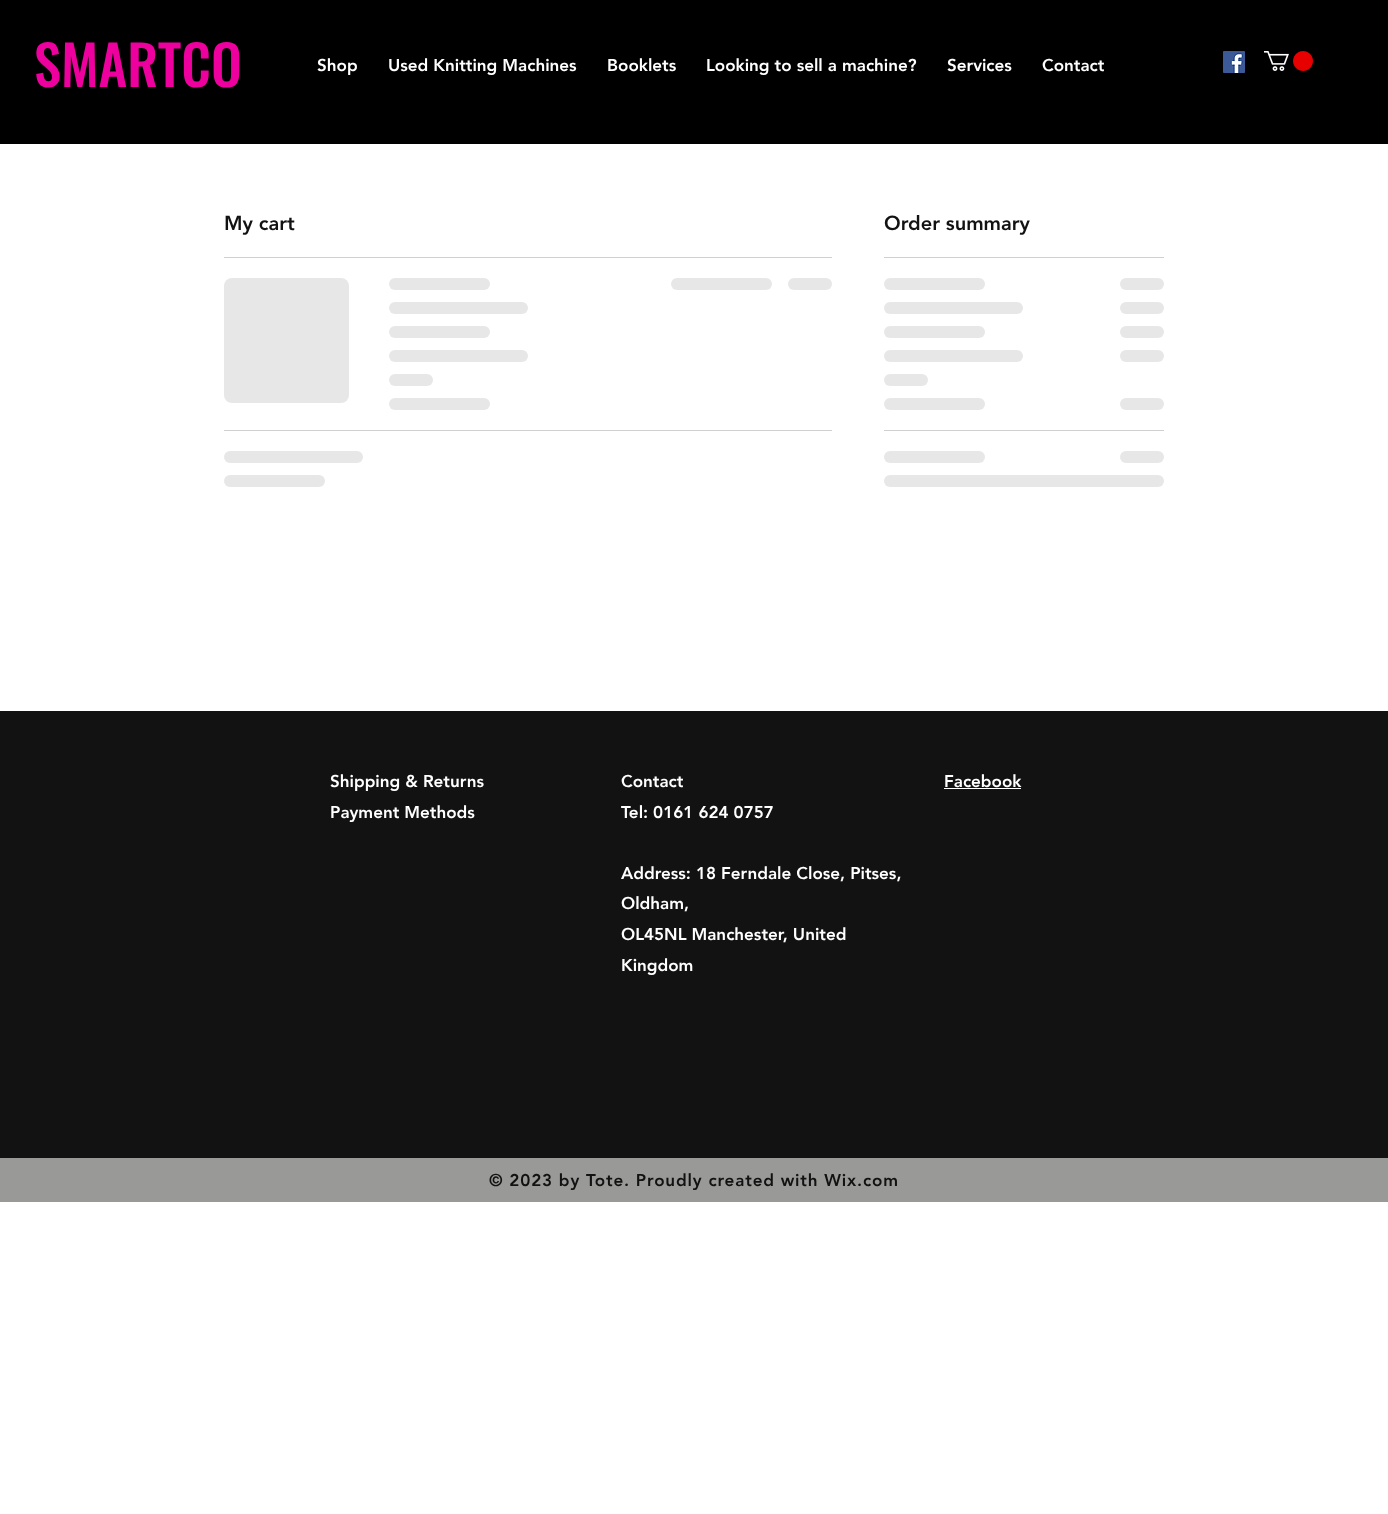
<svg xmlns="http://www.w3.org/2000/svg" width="1388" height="1514">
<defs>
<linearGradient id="g1" gradientUnits="userSpaceOnUse" x1="224" y1="341" x2="724" y2="341"><stop offset="0.25" stop-color="#e7e7e7"/><stop offset="0.37" stop-color="#d0d0d0"/><stop offset="0.63" stop-color="#e7e7e7"/></linearGradient>
<linearGradient id="g2" gradientUnits="userSpaceOnUse" x1="389" y1="284" x2="793" y2="284"><stop offset="0.25" stop-color="#e7e7e7"/><stop offset="0.37" stop-color="#d0d0d0"/><stop offset="0.63" stop-color="#e7e7e7"/></linearGradient>
<linearGradient id="g3" gradientUnits="userSpaceOnUse" x1="389" y1="308" x2="945" y2="308"><stop offset="0.25" stop-color="#e7e7e7"/><stop offset="0.37" stop-color="#d0d0d0"/><stop offset="0.63" stop-color="#e7e7e7"/></linearGradient>
<linearGradient id="g4" gradientUnits="userSpaceOnUse" x1="389" y1="332" x2="793" y2="332"><stop offset="0.25" stop-color="#e7e7e7"/><stop offset="0.37" stop-color="#d0d0d0"/><stop offset="0.63" stop-color="#e7e7e7"/></linearGradient>
<linearGradient id="g5" gradientUnits="userSpaceOnUse" x1="389" y1="356" x2="945" y2="356"><stop offset="0.25" stop-color="#e7e7e7"/><stop offset="0.37" stop-color="#d0d0d0"/><stop offset="0.63" stop-color="#e7e7e7"/></linearGradient>
<linearGradient id="g6" gradientUnits="userSpaceOnUse" x1="389" y1="380" x2="565" y2="380"><stop offset="0.25" stop-color="#e7e7e7"/><stop offset="0.37" stop-color="#d0d0d0"/><stop offset="0.63" stop-color="#e7e7e7"/></linearGradient>
<linearGradient id="g7" gradientUnits="userSpaceOnUse" x1="389" y1="404" x2="793" y2="404"><stop offset="0.25" stop-color="#e7e7e7"/><stop offset="0.37" stop-color="#d0d0d0"/><stop offset="0.63" stop-color="#e7e7e7"/></linearGradient>
<linearGradient id="g8" gradientUnits="userSpaceOnUse" x1="671" y1="284" x2="1075" y2="284"><stop offset="0.25" stop-color="#e7e7e7"/><stop offset="0.37" stop-color="#d0d0d0"/><stop offset="0.63" stop-color="#e7e7e7"/></linearGradient>
<linearGradient id="g9" gradientUnits="userSpaceOnUse" x1="788" y1="284" x2="964" y2="284"><stop offset="0.25" stop-color="#e7e7e7"/><stop offset="0.37" stop-color="#d0d0d0"/><stop offset="0.63" stop-color="#e7e7e7"/></linearGradient>
<linearGradient id="g10" gradientUnits="userSpaceOnUse" x1="224" y1="457" x2="780" y2="457"><stop offset="0.25" stop-color="#e7e7e7"/><stop offset="0.37" stop-color="#d0d0d0"/><stop offset="0.63" stop-color="#e7e7e7"/></linearGradient>
<linearGradient id="g11" gradientUnits="userSpaceOnUse" x1="224" y1="481" x2="628" y2="481"><stop offset="0.25" stop-color="#e7e7e7"/><stop offset="0.37" stop-color="#d0d0d0"/><stop offset="0.63" stop-color="#e7e7e7"/></linearGradient>
<linearGradient id="g12" gradientUnits="userSpaceOnUse" x1="884" y1="284" x2="1288" y2="284"><stop offset="0.25" stop-color="#e7e7e7"/><stop offset="0.37" stop-color="#d0d0d0"/><stop offset="0.63" stop-color="#e7e7e7"/></linearGradient>
<linearGradient id="g13" gradientUnits="userSpaceOnUse" x1="1120" y1="284" x2="1296" y2="284"><stop offset="0.25" stop-color="#e7e7e7"/><stop offset="0.37" stop-color="#d0d0d0"/><stop offset="0.63" stop-color="#e7e7e7"/></linearGradient>
<linearGradient id="g14" gradientUnits="userSpaceOnUse" x1="884" y1="308" x2="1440" y2="308"><stop offset="0.25" stop-color="#e7e7e7"/><stop offset="0.37" stop-color="#d0d0d0"/><stop offset="0.63" stop-color="#e7e7e7"/></linearGradient>
<linearGradient id="g15" gradientUnits="userSpaceOnUse" x1="1120" y1="308" x2="1296" y2="308"><stop offset="0.25" stop-color="#e7e7e7"/><stop offset="0.37" stop-color="#d0d0d0"/><stop offset="0.63" stop-color="#e7e7e7"/></linearGradient>
<linearGradient id="g16" gradientUnits="userSpaceOnUse" x1="884" y1="332" x2="1288" y2="332"><stop offset="0.25" stop-color="#e7e7e7"/><stop offset="0.37" stop-color="#d0d0d0"/><stop offset="0.63" stop-color="#e7e7e7"/></linearGradient>
<linearGradient id="g17" gradientUnits="userSpaceOnUse" x1="1120" y1="332" x2="1296" y2="332"><stop offset="0.25" stop-color="#e7e7e7"/><stop offset="0.37" stop-color="#d0d0d0"/><stop offset="0.63" stop-color="#e7e7e7"/></linearGradient>
<linearGradient id="g18" gradientUnits="userSpaceOnUse" x1="884" y1="356" x2="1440" y2="356"><stop offset="0.25" stop-color="#e7e7e7"/><stop offset="0.37" stop-color="#d0d0d0"/><stop offset="0.63" stop-color="#e7e7e7"/></linearGradient>
<linearGradient id="g19" gradientUnits="userSpaceOnUse" x1="1120" y1="356" x2="1296" y2="356"><stop offset="0.25" stop-color="#e7e7e7"/><stop offset="0.37" stop-color="#d0d0d0"/><stop offset="0.63" stop-color="#e7e7e7"/></linearGradient>
<linearGradient id="g20" gradientUnits="userSpaceOnUse" x1="884" y1="380" x2="1060" y2="380"><stop offset="0.25" stop-color="#e7e7e7"/><stop offset="0.37" stop-color="#d0d0d0"/><stop offset="0.63" stop-color="#e7e7e7"/></linearGradient>
<linearGradient id="g21" gradientUnits="userSpaceOnUse" x1="884" y1="404" x2="1288" y2="404"><stop offset="0.25" stop-color="#e7e7e7"/><stop offset="0.37" stop-color="#d0d0d0"/><stop offset="0.63" stop-color="#e7e7e7"/></linearGradient>
<linearGradient id="g22" gradientUnits="userSpaceOnUse" x1="1120" y1="404" x2="1296" y2="404"><stop offset="0.25" stop-color="#e7e7e7"/><stop offset="0.37" stop-color="#d0d0d0"/><stop offset="0.63" stop-color="#e7e7e7"/></linearGradient>
<linearGradient id="g23" gradientUnits="userSpaceOnUse" x1="884" y1="457" x2="1288" y2="457"><stop offset="0.25" stop-color="#e7e7e7"/><stop offset="0.37" stop-color="#d0d0d0"/><stop offset="0.63" stop-color="#e7e7e7"/></linearGradient>
<linearGradient id="g24" gradientUnits="userSpaceOnUse" x1="1120" y1="457" x2="1296" y2="457"><stop offset="0.25" stop-color="#e7e7e7"/><stop offset="0.37" stop-color="#d0d0d0"/><stop offset="0.63" stop-color="#e7e7e7"/></linearGradient>
<linearGradient id="g25" gradientUnits="userSpaceOnUse" x1="884" y1="481" x2="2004" y2="481"><stop offset="0.25" stop-color="#e7e7e7"/><stop offset="0.37" stop-color="#d0d0d0"/><stop offset="0.63" stop-color="#e7e7e7"/></linearGradient>
</defs>
<rect width="100%" height="100%" fill="#fff"/>
<rect width="1388" height="144" fill="#000"/>
<text x="34" y="87" style="font-family:Oswald;font-size:55px;font-weight:500;fill:#ed009e">SMARTCO</text>
<text x="317" y="71" style="font-family:'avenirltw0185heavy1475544';font-size:17px;font-weight:900;fill:#fff">Shop</text>
<text x="388" y="71" style="font-family:'avenirltw0185heavy1475544';font-size:17px;font-weight:900;fill:#fff">Used Knitting Machines</text>
<text x="607" y="71" style="font-family:'avenirltw0185heavy1475544';font-size:17px;font-weight:900;fill:#fff">Booklets</text>
<text x="706" y="71" style="font-family:'avenirltw0185heavy1475544';font-size:17px;font-weight:900;fill:#fff">Looking to sell a machine?</text>
<text x="947" y="71" style="font-family:'avenirltw0185heavy1475544';font-size:17px;font-weight:900;fill:#fff">Services</text>
<text x="1042" y="71" style="font-family:'avenirltw0185heavy1475544';font-size:17px;font-weight:900;fill:#fff">Contact</text>
<image x="1223" y="51" width="22" height="22" href="media/1.png"/>
<image x="1264" y="51" width="49" height="20" href="media/2.png"/>
<rect x="224" y="257" width="608" height="1" fill="#d0d0d0"/>
<text x="224" y="230" style="font-family:'avenirltw0185heavy1475544';font-size:20px;font-weight:900;fill:#121212">My cart</text>
<rect x="224" y="278" width="125" height="125" rx="8" fill="url(#g1)"/>
<rect x="389" y="278" width="101" height="12" rx="6" fill="url(#g2)"/>
<rect x="389" y="302" width="139" height="12" rx="6" fill="url(#g3)"/>
<rect x="389" y="326" width="101" height="12" rx="6" fill="url(#g4)"/>
<rect x="389" y="350" width="139" height="12" rx="6" fill="url(#g5)"/>
<rect x="389" y="374" width="44" height="12" rx="6" fill="url(#g6)"/>
<rect x="389" y="398" width="101" height="12" rx="6" fill="url(#g7)"/>
<rect x="671" y="278" width="101" height="12" rx="6" fill="url(#g8)"/>
<rect x="788" y="278" width="44" height="12" rx="6" fill="url(#g9)"/>
<rect x="224" y="430" width="608" height="1" fill="#d0d0d0"/>
<rect x="224" y="451" width="139" height="12" rx="6" fill="url(#g10)"/>
<rect x="224" y="475" width="101" height="12" rx="6" fill="url(#g11)"/>
<rect x="884" y="257" width="280" height="1" fill="#d0d0d0"/>
<text x="884" y="230" style="font-family:'avenirltw0185heavy1475544';font-size:20px;font-weight:900;fill:#121212">Order summary</text>
<rect x="884" y="278" width="101" height="12" rx="6" fill="url(#g12)"/>
<rect x="1120" y="278" width="44" height="12" rx="6" fill="url(#g13)"/>
<rect x="884" y="302" width="139" height="12" rx="6" fill="url(#g14)"/>
<rect x="1120" y="302" width="44" height="12" rx="6" fill="url(#g15)"/>
<rect x="884" y="326" width="101" height="12" rx="6" fill="url(#g16)"/>
<rect x="1120" y="326" width="44" height="12" rx="6" fill="url(#g17)"/>
<rect x="884" y="350" width="139" height="12" rx="6" fill="url(#g18)"/>
<rect x="1120" y="350" width="44" height="12" rx="6" fill="url(#g19)"/>
<rect x="884" y="374" width="44" height="12" rx="6" fill="url(#g20)"/>
<rect x="884" y="398" width="101" height="12" rx="6" fill="url(#g21)"/>
<rect x="1120" y="398" width="44" height="12" rx="6" fill="url(#g22)"/>
<rect x="884" y="430" width="280" height="1" fill="#d0d0d0"/>
<rect x="884" y="451" width="101" height="12" rx="6" fill="url(#g23)"/>
<rect x="1120" y="451" width="44" height="12" rx="6" fill="url(#g24)"/>
<rect x="884" y="475" width="280" height="12" rx="6" fill="url(#g25)"/>
<rect y="711" width="1388" height="447" fill="#121212"/>
<text x="330" y="787" style="font-family:'avenirltw0185heavy1475544';font-size:17px;font-weight:900;fill:#fff">Shipping &amp; Returns</text>
<text x="330" y="818" style="font-family:'avenirltw0185heavy1475544';font-size:17px;font-weight:900;fill:#fff">Payment Methods</text>
<text x="621" y="787" style="font-family:'avenirltw0185heavy1475544';font-size:17px;font-weight:900;fill:#fff">Contact</text>
<text x="621" y="818" style="font-family:'avenirltw0185heavy1475544';font-size:17px;font-weight:900;fill:#fff">Tel: 0161 624 0757</text>
<text x="621" y="879" style="font-family:'avenirltw0185heavy1475544';font-size:17px;font-weight:900;fill:#fff">Address: 18 Ferndale Close, Pitses,</text>
<text x="621" y="909" style="font-family:'avenirltw0185heavy1475544';font-size:17px;font-weight:900;fill:#fff">Oldham,</text>
<text x="621" y="940" style="font-family:'avenirltw0185heavy1475544';font-size:17px;font-weight:900;fill:#fff">OL45NL Manchester, United</text>
<text x="621" y="971" style="font-family:'avenirltw0185heavy1475544';font-size:17px;font-weight:900;fill:#fff">Kingdom</text>
<text x="944" y="787" style="font-family:'avenirltw0185heavy1475544';font-size:17px;font-weight:900;fill:#fff">Facebook</text>
<rect x="944" y="788" width="77" height="1" fill="#fff"/>
<rect y="1158" width="1388" height="44" fill="#999997"/>
<text x="489" y="1186" style="font-family:'avenirltw0185heavy1475544';font-size:17px;font-weight:900;letter-spacing:0.85px;fill:#121212">© 2023 by Tote. Proudly created with Wix.com</text>
</svg>
